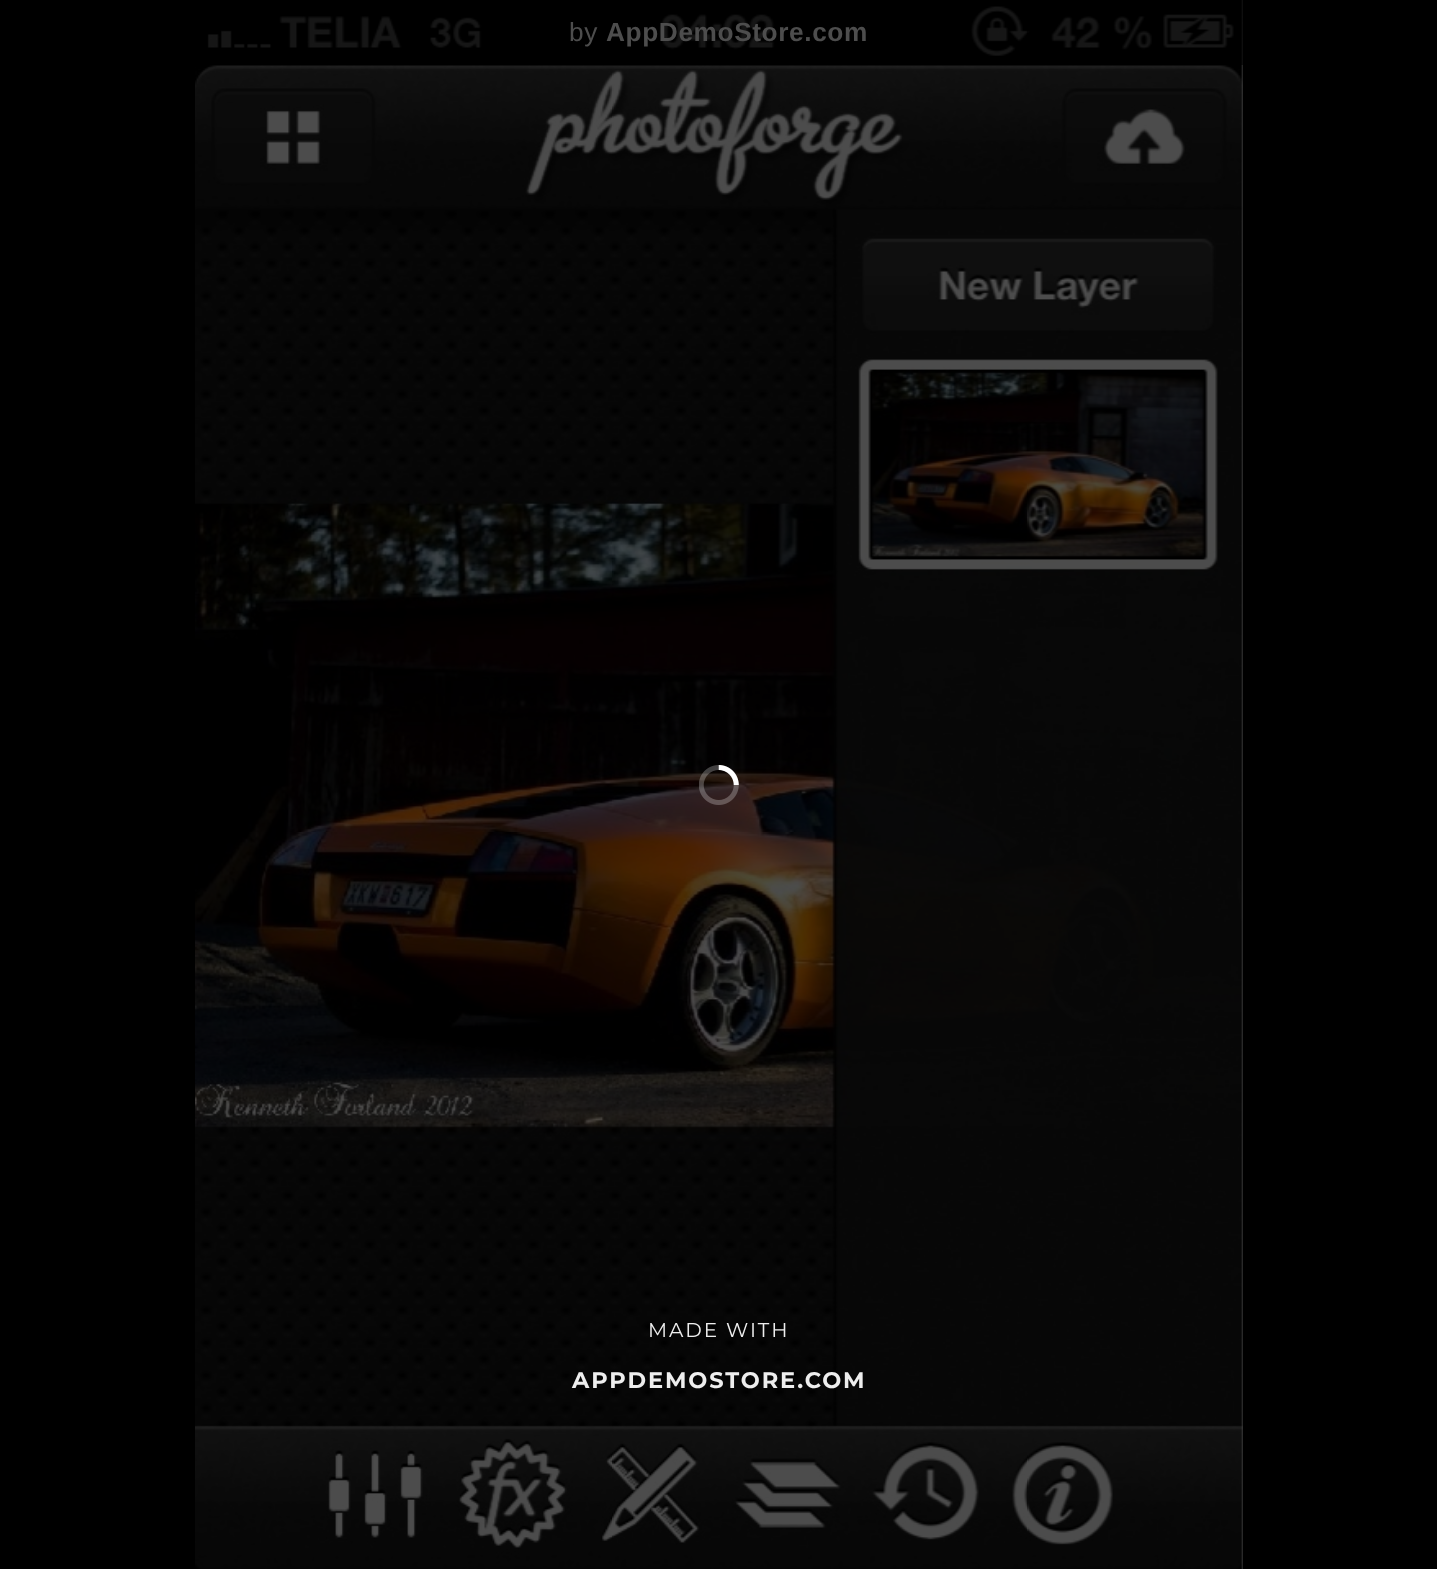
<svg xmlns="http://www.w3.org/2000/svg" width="1437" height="1569">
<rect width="100%" height="100%" fill="#000"/>
<rect x="1241" width="2" height="1569" fill="#4d4d4d"/>
<image x="195" y="0" width="1048" height="1569" href="media/1.png"/>
<rect x="207" width="1036" height="65" fill="#00000099"/>
<text x="569" y="41" style="font-family:Liberation Sans;font-size:26.25px;letter-spacing:0.6px;fill:#4d4d4d">by</text>
<text x="606" y="41" style="font-family:Liberation Sans;font-size:26.25px;font-weight:bold;letter-spacing:0.6px;fill:#4d4d4d">AppDemoStore.com</text>
<image x="699" y="765" width="40" height="40" href="media/2.png"/>
<text x="648" y="1337" style="font-family:Montserrat;font-size:20px;letter-spacing:1.9px;fill:#eee">MADE WITH</text>
<text x="572" y="1388" style="font-family:Montserrat;font-size:22.5px;font-weight:bold;letter-spacing:1.9px;fill:#eee">APPDEMOSTORE.COM</text>
</svg>
